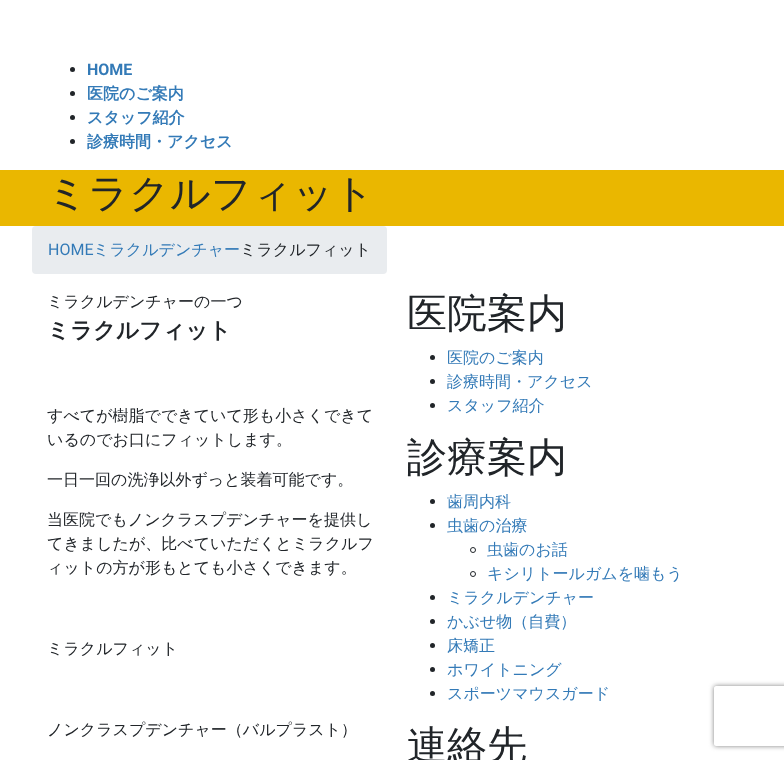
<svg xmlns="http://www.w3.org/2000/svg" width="784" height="760">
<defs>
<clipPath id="clip1"><path d="M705 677h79v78h-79zm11 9h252c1 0 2 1 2 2v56c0 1-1 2-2 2h-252c-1 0-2-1-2-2v-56c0-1 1-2 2-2z" clip-rule="evenodd"/></clipPath>
</defs>
<rect width="100%" height="100%" fill="#fff"/>
<circle cx="72.5" cy="69.5" r="2.5" fill="#212529"/>
<text x="87" y="75" style="font-family:Roboto;font-size:16px;font-weight:bold;fill:#337ab7">HOME</text>
<circle cx="72.5" cy="93.5" r="2.5" fill="#212529"/>
<text x="87" y="99" style="font-family:WenQuanYi Zen Hei;font-size:16px;font-weight:bold;fill:#337ab7">医院のご案内</text>
<circle cx="72.5" cy="117.5" r="2.5" fill="#212529"/>
<text x="87" y="123" style="font-family:WenQuanYi Zen Hei;font-size:16px;font-weight:bold;fill:#337ab7">スタッフ紹介</text>
<circle cx="72.5" cy="141.5" r="2.5" fill="#212529"/>
<text x="87" y="147" style="font-family:WenQuanYi Zen Hei;font-size:16px;font-weight:bold;fill:#337ab7">診療時間・アクセス</text>
<rect y="170" width="784" height="56" fill="#eab700"/>
<text x="47" y="207" style="font-family:WenQuanYi Zen Hei;font-size:40px;font-weight:500;fill:#212529">ミラクルフィット</text>
<rect x="32" y="226" width="355" height="48" rx="4" fill="#e9ecef"/>
<text x="48" y="255" style="font-family:Roboto;font-size:16px;fill:#337ab7">HOME</text>
<text x="93" y="255" style="font-family:WenQuanYi Zen Hei;font-size:16px;font-weight:500;fill:#337ab7">ミラクルデンチャー</text>
<text x="240" y="255" style="font-family:WenQuanYi Zen Hei;font-size:16px;font-weight:500;fill:#212529">ミラクルフィット</text>
<text x="47" y="307" style="font-family:WenQuanYi Zen Hei;font-size:16px;font-weight:500;fill:#212529">ミラクルデンチャーの一つ</text>
<text x="47" y="338" style="font-family:WenQuanYi Zen Hei;font-size:22.5px;font-weight:bold;fill:#212529">ミラクルフィット</text>
<text x="47" y="421" style="font-family:WenQuanYi Zen Hei;font-size:16px;font-weight:500;fill:#212529">すべてが樹脂でできていて形も小さくできて</text>
<text x="47" y="445" style="font-family:WenQuanYi Zen Hei;font-size:16px;font-weight:500;fill:#212529">いるのでお口にフィットします。</text>
<text x="47" y="485" style="font-family:WenQuanYi Zen Hei;font-size:16px;font-weight:500;fill:#212529">一日一回の洗浄以外ずっと装着可能です。</text>
<text x="47" y="525" style="font-family:WenQuanYi Zen Hei;font-size:16px;font-weight:500;fill:#212529">当医院でもノンクラスプデンチャーを提供し</text>
<text x="47" y="549" style="font-family:WenQuanYi Zen Hei;font-size:16px;font-weight:500;fill:#212529">てきましたが、比べていただくとミラクルフ</text>
<text x="47" y="573" style="font-family:WenQuanYi Zen Hei;font-size:16px;font-weight:500;fill:#212529">ィットの方が形もとても小さくできます。</text>
<text x="47" y="654" style="font-family:WenQuanYi Zen Hei;font-size:16px;font-weight:500;fill:#212529">ミラクルフィット</text>
<text x="47" y="735" style="font-family:WenQuanYi Zen Hei;font-size:16px;font-weight:500;fill:#212529">ノンクラスプデンチャー（バルプラスト）</text>
<text x="407" y="327" style="font-family:WenQuanYi Zen Hei;font-size:40px;font-weight:500;fill:#212529">医院案内</text>
<circle cx="432.5" cy="357.5" r="2.5" fill="#212529"/>
<text x="447" y="363" style="font-family:WenQuanYi Zen Hei;font-size:16px;font-weight:500;fill:#337ab7">医院のご案内</text>
<circle cx="432.5" cy="381.5" r="2.5" fill="#212529"/>
<text x="447" y="387" style="font-family:WenQuanYi Zen Hei;font-size:16px;font-weight:500;fill:#337ab7">診療時間・アクセス</text>
<circle cx="432.5" cy="405.5" r="2.5" fill="#212529"/>
<text x="447" y="411" style="font-family:WenQuanYi Zen Hei;font-size:16px;font-weight:500;fill:#337ab7">スタッフ紹介</text>
<text x="407" y="471" style="font-family:WenQuanYi Zen Hei;font-size:40px;font-weight:500;fill:#212529">診療案内</text>
<circle cx="432.5" cy="501.5" r="2.5" fill="#212529"/>
<text x="447" y="507" style="font-family:WenQuanYi Zen Hei;font-size:16px;font-weight:500;fill:#337ab7">歯周内科</text>
<circle cx="432.5" cy="525.5" r="2.5" fill="#212529"/>
<text x="447" y="531" style="font-family:WenQuanYi Zen Hei;font-size:16px;font-weight:500;fill:#337ab7">虫歯の治療</text>
<circle cx="473" cy="550" r="2.5" fill="none" stroke="#212529"/>
<text x="487" y="555" style="font-family:WenQuanYi Zen Hei;font-size:16px;font-weight:500;fill:#337ab7">虫歯のお話</text>
<circle cx="473" cy="574" r="2.5" fill="none" stroke="#212529"/>
<text x="487" y="579" style="font-family:WenQuanYi Zen Hei;font-size:16px;font-weight:500;fill:#337ab7">キシリトールガムを噛もう</text>
<circle cx="432.5" cy="597.5" r="2.5" fill="#212529"/>
<text x="447" y="603" style="font-family:WenQuanYi Zen Hei;font-size:16px;font-weight:500;fill:#337ab7">ミラクルデンチャー</text>
<circle cx="432.5" cy="621.5" r="2.5" fill="#212529"/>
<text x="447" y="627" style="font-family:WenQuanYi Zen Hei;font-size:16px;font-weight:500;fill:#337ab7">かぶせ物（自費）</text>
<circle cx="432.5" cy="645.5" r="2.5" fill="#212529"/>
<text x="447" y="651" style="font-family:WenQuanYi Zen Hei;font-size:16px;font-weight:500;fill:#337ab7">床矯正</text>
<circle cx="432.5" cy="669.5" r="2.5" fill="#212529"/>
<text x="447" y="675" style="font-family:WenQuanYi Zen Hei;font-size:16px;font-weight:500;fill:#337ab7">ホワイトニング</text>
<circle cx="432.5" cy="693.5" r="2.5" fill="#212529"/>
<text x="447" y="699" style="font-family:WenQuanYi Zen Hei;font-size:16px;font-weight:500;fill:#337ab7">スポーツマウスガード</text>
<text x="407" y="759" style="font-family:WenQuanYi Zen Hei;font-size:40px;font-weight:500;fill:#212529">連絡先</text>
<g clip-path="url(#clip1)">
<rect x="714" y="686" width="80" height="60" rx="2" fill="#808080" filter="blur(2.5px)"/>
</g>
</svg>
